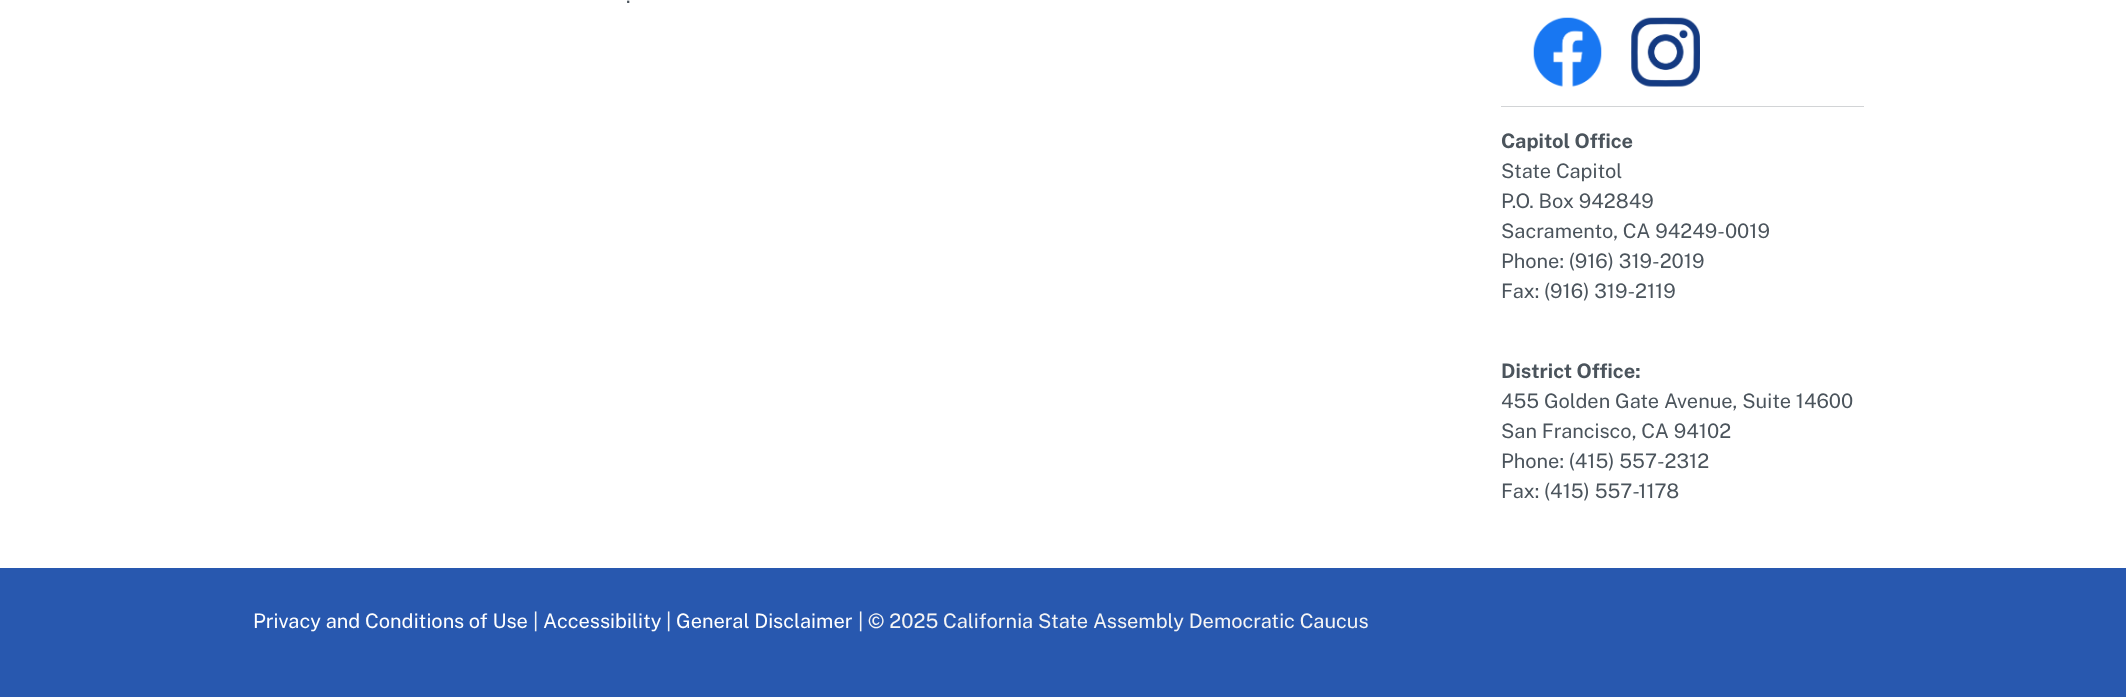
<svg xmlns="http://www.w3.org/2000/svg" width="2126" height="697">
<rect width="100%" height="100%" fill="#fff"/>
<text x="626" y="3" style="font-family:Public Sans;font-size:20px;fill:#4b545c">.</text>
<image x="1533" y="17" width="69" height="70" href="media/1.png"/>
<image x="1631" y="17" width="69" height="70" href="media/2.png"/>
<rect x="1501" y="106" width="363" height="1" fill="#d2d4d6"/>
<text x="1501" y="148" style="font-family:Public Sans;font-size:20px;font-weight:bold;fill:#4b545c">Capitol Office</text>
<text x="1501" y="178" style="font-family:Public Sans;font-size:20px;fill:#4b545c">State Capitol</text>
<text x="1501" y="208" style="font-family:Public Sans;font-size:20px;fill:#4b545c">P.O. Box 942849</text>
<text x="1501" y="238" style="font-family:Public Sans;font-size:20px;fill:#4b545c">Sacramento, CA 94249-0019</text>
<text x="1501" y="268" style="font-family:Public Sans;font-size:20px;fill:#4b545c">Phone: (916) 319-2019</text>
<text x="1501" y="298" style="font-family:Public Sans;font-size:20px;fill:#4b545c">Fax: (916) 319-2119</text>
<text x="1501" y="378" style="font-family:Public Sans;font-size:20px;font-weight:bold;fill:#4b545c">District Office:</text>
<text x="1501" y="408" style="font-family:Public Sans;font-size:20px;fill:#4b545c">455 Golden Gate Avenue, Suite 14600</text>
<text x="1501" y="438" style="font-family:Public Sans;font-size:20px;fill:#4b545c">San Francisco, CA 94102</text>
<text x="1501" y="468" style="font-family:Public Sans;font-size:20px;fill:#4b545c">Phone: (415) 557-2312</text>
<text x="1501" y="498" style="font-family:Public Sans;font-size:20px;fill:#4b545c">Fax: (415) 557-1178</text>
<rect y="568" width="2126" height="129" fill="#2858af"/>
<text x="253" y="628" style="font-family:Public Sans;font-size:20px;fill:#fff">Privacy and Conditions of Use</text>
<text x="533" y="628" style="font-family:Public Sans;font-size:20px;fill:#f5f5f5">|</text>
<text x="543" y="628" style="font-family:Public Sans;font-size:20px;fill:#fff">Accessibility</text>
<text x="666" y="628" style="font-family:Public Sans;font-size:20px;fill:#f5f5f5">|</text>
<text x="676" y="628" style="font-family:Public Sans;font-size:20px;fill:#fff">General Disclaimer</text>
<text x="858" y="628" style="font-family:Public Sans;font-size:20px;fill:#f5f5f5">| © 2025 California State Assembly Democratic Caucus</text>
</svg>
